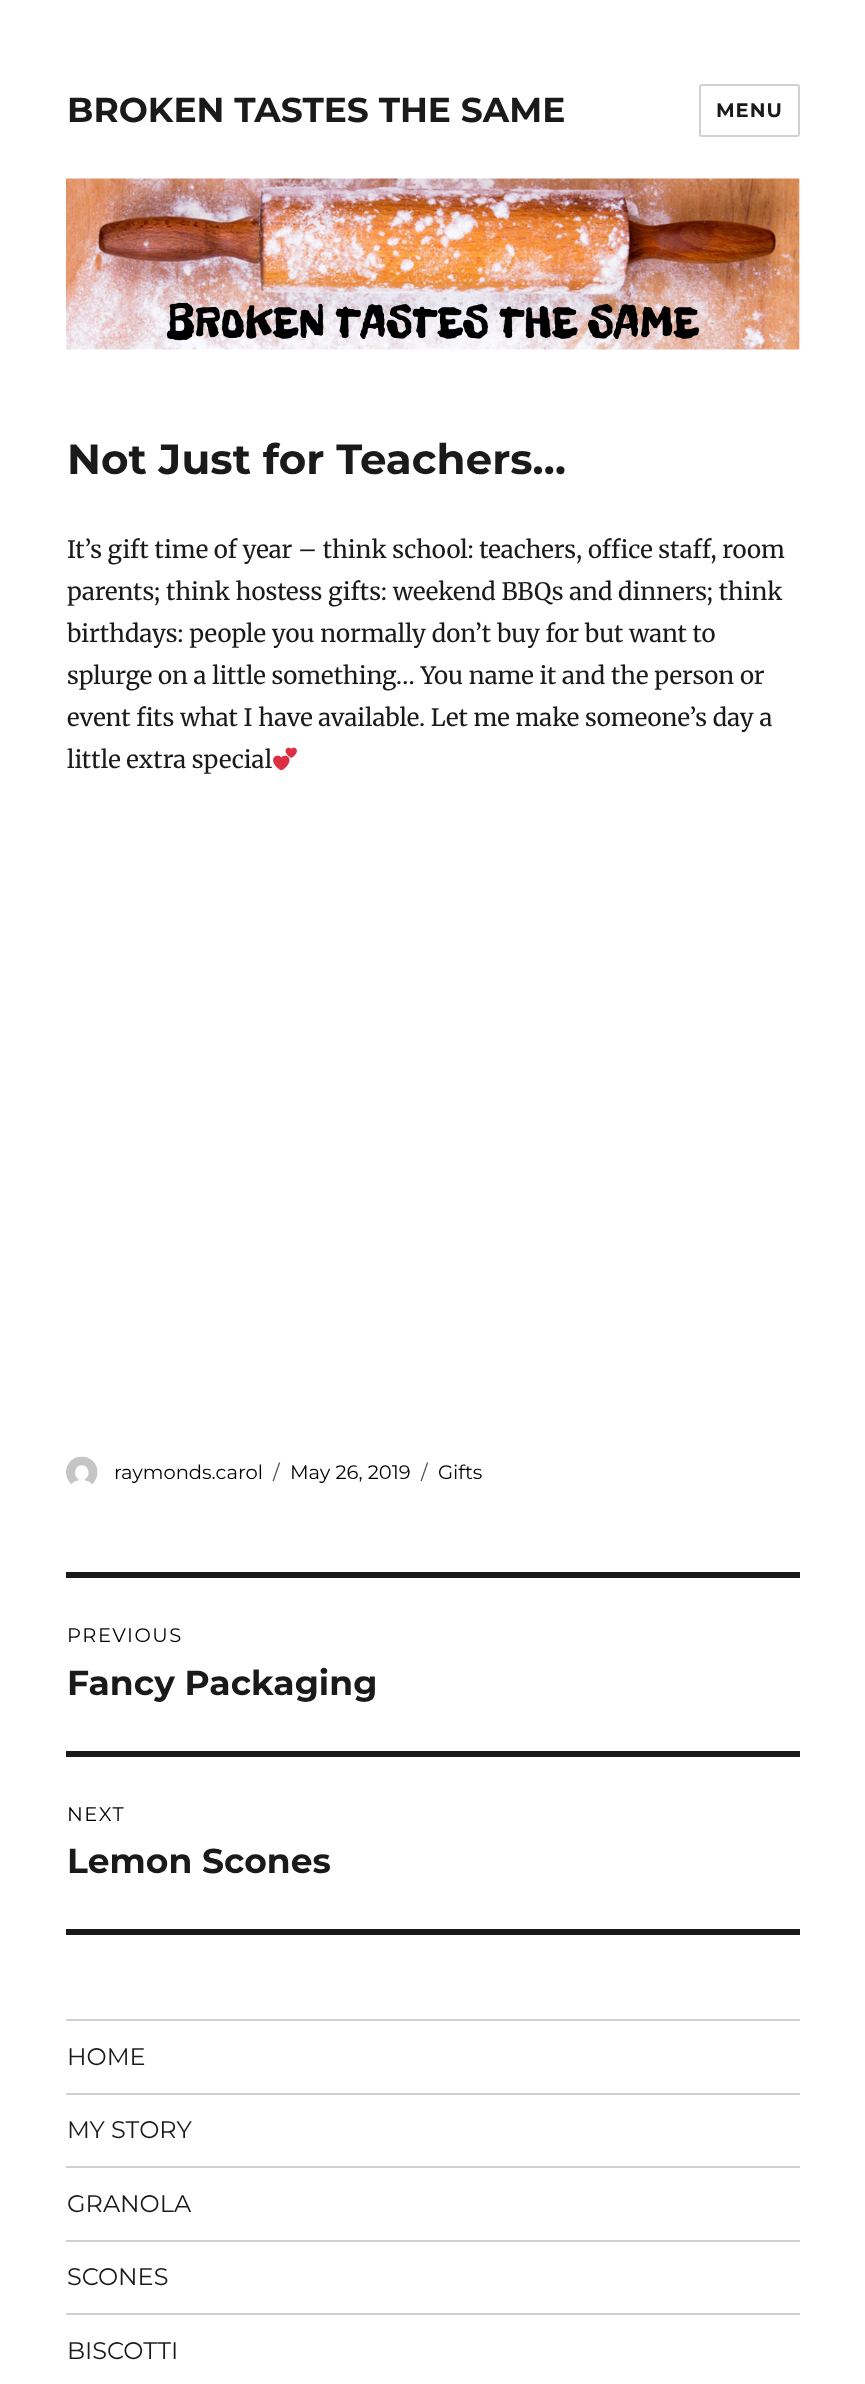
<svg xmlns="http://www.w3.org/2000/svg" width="865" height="2384">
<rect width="100%" height="100%" fill="#fff"/>
<text x="67" y="122" style="font-family:Montserrat;font-size:34.5px;font-weight:bold;fill:#1a1a1a">BROKEN TASTES THE SAME</text>
<rect x="700" y="85" width="99" height="51" rx="2" fill="none" stroke="#d1d1d1" stroke-width="2"/>
<text x="716" y="117" style="font-family:Montserrat;font-size:19.5px;font-weight:bold;letter-spacing:1px;fill:#1a1a1a">MENU</text>
<image x="66" y="178" width="734" height="172" href="media/1.png"/>
<text x="67" y="474" style="font-family:Montserrat;font-size:42px;font-weight:bold;fill:#1a1a1a">Not Just for Teachers…</text>
<text x="67" y="558" style="font-family:Merriweather;font-size:24px;fill:#1a1a1a">It’s gift time of year – think school: teachers, office staff, room</text>
<text x="67" y="600" style="font-family:Merriweather;font-size:24px;fill:#1a1a1a">parents; think hostess gifts: weekend BBQs and dinners; think</text>
<text x="67" y="642" style="font-family:Merriweather;font-size:24px;fill:#1a1a1a">birthdays: people you normally don’t buy for but want to</text>
<text x="67" y="684" style="font-family:Merriweather;font-size:24px;fill:#1a1a1a">splurge on a little something… You name it and the person or</text>
<text x="67" y="726" style="font-family:Merriweather;font-size:24px;fill:#1a1a1a">event fits what I have available. Let me make someone’s day a</text>
<text x="67" y="768" style="font-family:Merriweather;font-size:24px;fill:#1a1a1a">little extra special</text>
<image x="273" y="747" width="24" height="24" href="media/2.png"/>
<image x="66" y="1456" width="32" height="29" href="media/3.png"/>
<text x="114" y="1479" style="font-family:Montserrat;font-size:19.5px;fill:#000">raymonds.carol</text>
<text x="273" y="1479" style="font-family:Montserrat;font-size:19.5px;fill:#4d4d4d">/</text>
<text x="290" y="1479" style="font-family:Montserrat;font-size:19.5px;fill:#000">May 26, 2019</text>
<text x="421" y="1479" style="font-family:Montserrat;font-size:19.5px;fill:#4d4d4d">/</text>
<text x="438" y="1479" style="font-family:Montserrat;font-size:19.5px;fill:#000">Gifts</text>
<rect x="66" y="1572" width="734" height="6" fill="#1a1a1a"/>
<rect x="66" y="1929" width="734" height="6" fill="#1a1a1a"/>
<text x="67" y="1642" style="font-family:Montserrat;font-size:19.5px;letter-spacing:1.5px;fill:#000">PREVIOUS</text>
<text x="67" y="1695" style="font-family:Montserrat;font-size:34.5px;font-weight:bold;fill:#1a1a1a">Fancy Packaging</text>
<rect x="66" y="1751" width="734" height="6" fill="#1a1a1a"/>
<text x="67" y="1821" style="font-family:Montserrat;font-size:19.5px;letter-spacing:1.5px;fill:#000">NEXT</text>
<text x="67" y="1873" style="font-family:Montserrat;font-size:34.5px;font-weight:bold;fill:#1a1a1a">Lemon Scones</text>
<rect x="66" y="2019" width="734" height="2" fill="#d1d1d1"/>
<text x="67" y="2065" style="font-family:Montserrat;font-size:24px;fill:#1a1a1a">HOME</text>
<rect x="66" y="2093" width="734" height="2" fill="#d1d1d1"/>
<text x="67" y="2138" style="font-family:Montserrat;font-size:24px;fill:#1a1a1a">MY STORY</text>
<rect x="66" y="2166" width="734" height="2" fill="#d1d1d1"/>
<text x="67" y="2212" style="font-family:Montserrat;font-size:24px;fill:#1a1a1a">GRANOLA</text>
<rect x="66" y="2240" width="734" height="2" fill="#d1d1d1"/>
<text x="67" y="2285" style="font-family:Montserrat;font-size:24px;fill:#1a1a1a">SCONES</text>
<rect x="66" y="2313" width="734" height="2" fill="#d1d1d1"/>
<text x="67" y="2359" style="font-family:Montserrat;font-size:24px;fill:#1a1a1a">BISCOTTI</text>
</svg>
